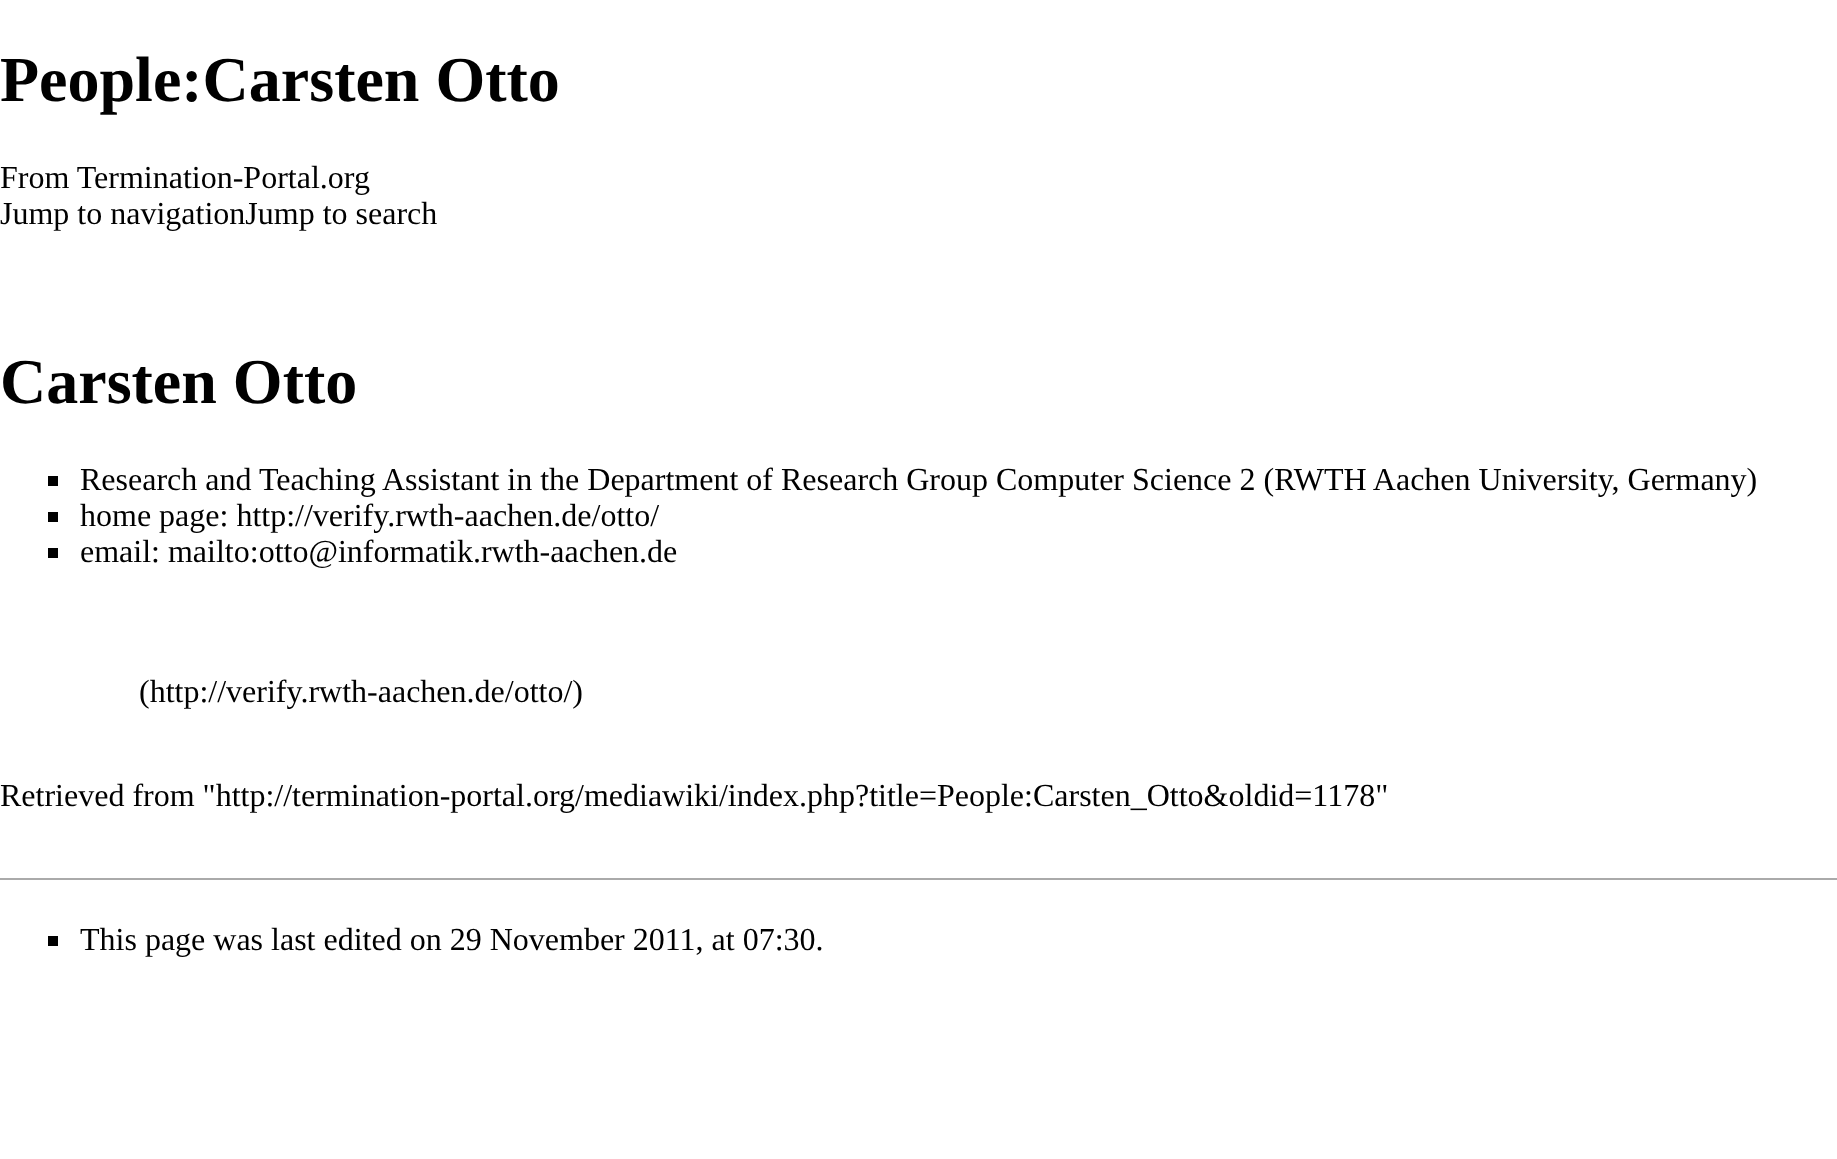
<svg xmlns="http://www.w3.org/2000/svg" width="1837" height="1159">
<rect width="100%" height="100%" fill="#fff"/>
<text x="0" y="101" style="font-family:Liberation Serif;font-size:64px;font-weight:bold;fill:#000">People:Carsten Otto</text>
<text x="0" y="188" style="font-family:Liberation Serif;font-size:32px;fill:#000">From Termination-Portal.org</text>
<text x="0" y="224" style="font-family:Liberation Serif;font-size:32px;fill:#000">Jump to navigationJump to search</text>
<text x="0" y="403" style="font-family:Liberation Serif;font-size:64px;font-weight:bold;fill:#000">Carsten Otto</text>
<rect x="48" y="476" width="10" height="10" fill="#000"/>
<text x="80" y="490" style="font-family:Liberation Serif;font-size:32px;fill:#000">Research and Teaching Assistant in the Department of Research Group Computer Science 2 (RWTH Aachen University, Germany)</text>
<rect x="48" y="512" width="10" height="10" fill="#000"/>
<text x="80" y="526" style="font-family:Liberation Serif;font-size:32px;fill:#000">home page: http://verify.rwth-aachen.de/otto/</text>
<rect x="48" y="548" width="10" height="10" fill="#000"/>
<text x="80" y="562" style="font-family:Liberation Serif;font-size:32px;fill:#000">email: mailto:otto@informatik.rwth-aachen.de</text>
<text x="139" y="702" style="font-family:Liberation Serif;font-size:32px;fill:#000">(http://verify.rwth-aachen.de/otto/)</text>
<text x="0" y="806" style="font-family:Liberation Serif;font-size:32px;fill:#000">Retrieved from "http://termination-portal.org/mediawiki/index.php?title=People:Carsten_Otto&amp;oldid=1178"</text>
<rect y="878" width="1837" height="2" fill="#aaa"/>
<rect x="48" y="936" width="10" height="10" fill="#000"/>
<text x="80" y="950" style="font-family:Liberation Serif;font-size:32px;fill:#000">This page was last edited on 29 November 2011, at 07:30.</text>
</svg>
